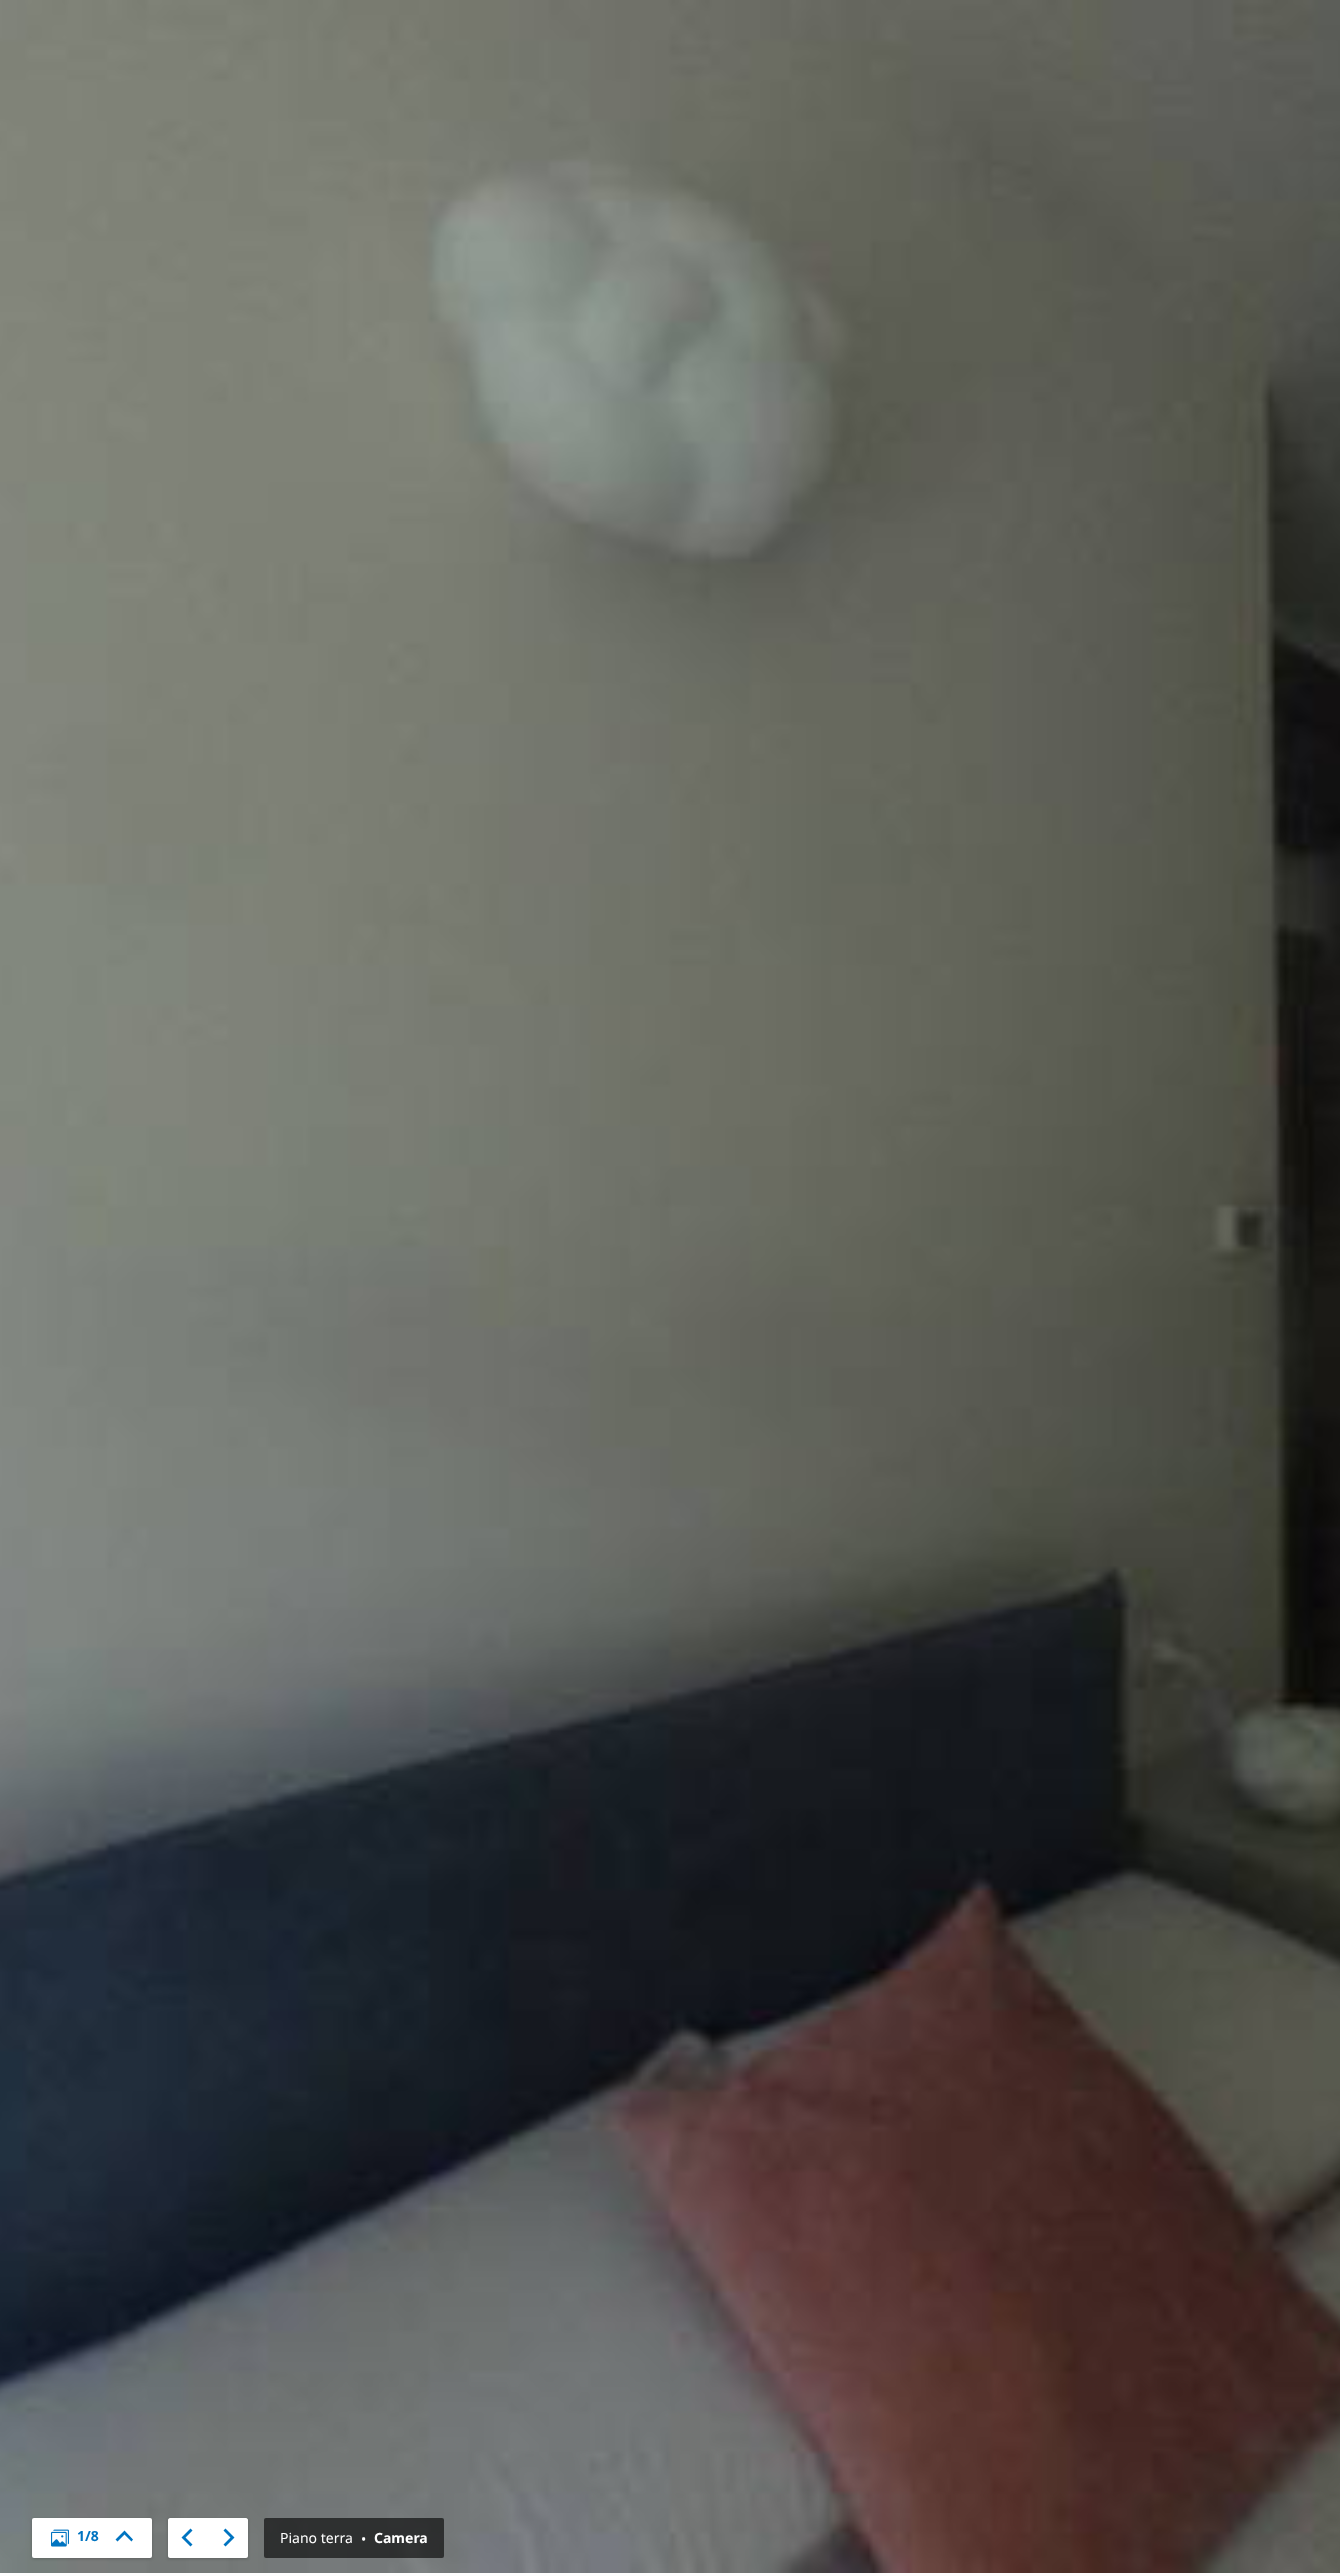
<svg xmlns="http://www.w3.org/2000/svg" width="1340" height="2573">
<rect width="100%" height="100%" fill="#fff"/>
<image x="0" y="0" width="1340" height="2573" href="media/1.png"/>
<rect x="32" y="2519" width="120" height="40" rx="2" fill="#00000033" filter="blur(1.5px)"/>
<rect x="32" y="2518" width="120" height="40" rx="2" fill="#fff"/>
<image x="51" y="2529" width="18" height="18" href="media/2.png"/>
<text x="77" y="2541" style="font-family:Noto Sans;font-size:14px;font-weight:bold;fill:#0074c1">1/8</text>
<path d="M117.5 2541.5l-2-2l9-9l8.5 9l-1.5 2l-7-7z" fill="#0074c1" fill-rule="evenodd"/>
<rect x="168" y="2519" width="80" height="40" fill="#00000033" filter="blur(1.5px)"/>
<path d="M170 2518h38v40h-38c-1 0-2-1-2-2v-36c0-1 1-2 2-2z" fill="#fff"/>
<path d="M192.5 2544.5l-2 2l-9-9l9-9l2 2l-7 7z" fill="#0074c1" fill-rule="evenodd"/>
<path d="M208 2518h38c1 0 2 1 2 2v36c0 1-1 2-2 2h-38z" fill="#fff"/>
<path d="M223.5 2530.5l2-2l9 9l-9 9l-2-2l7-7z" fill="#0074c1" fill-rule="evenodd"/>
<rect x="264" y="2518" width="180" height="40" rx="2" fill="#00000099"/>
<text x="280" y="2543" style="font-family:Noto Sans;font-size:14px;fill:#fff">Piano terra</text>
<text x="361" y="2544" style="font-family:Noto Sans;font-size:14px;fill:#fff">•</text>
<text x="374" y="2543" style="font-family:Noto Sans;font-size:14px;font-weight:bold;fill:#fff">Camera</text>
</svg>
